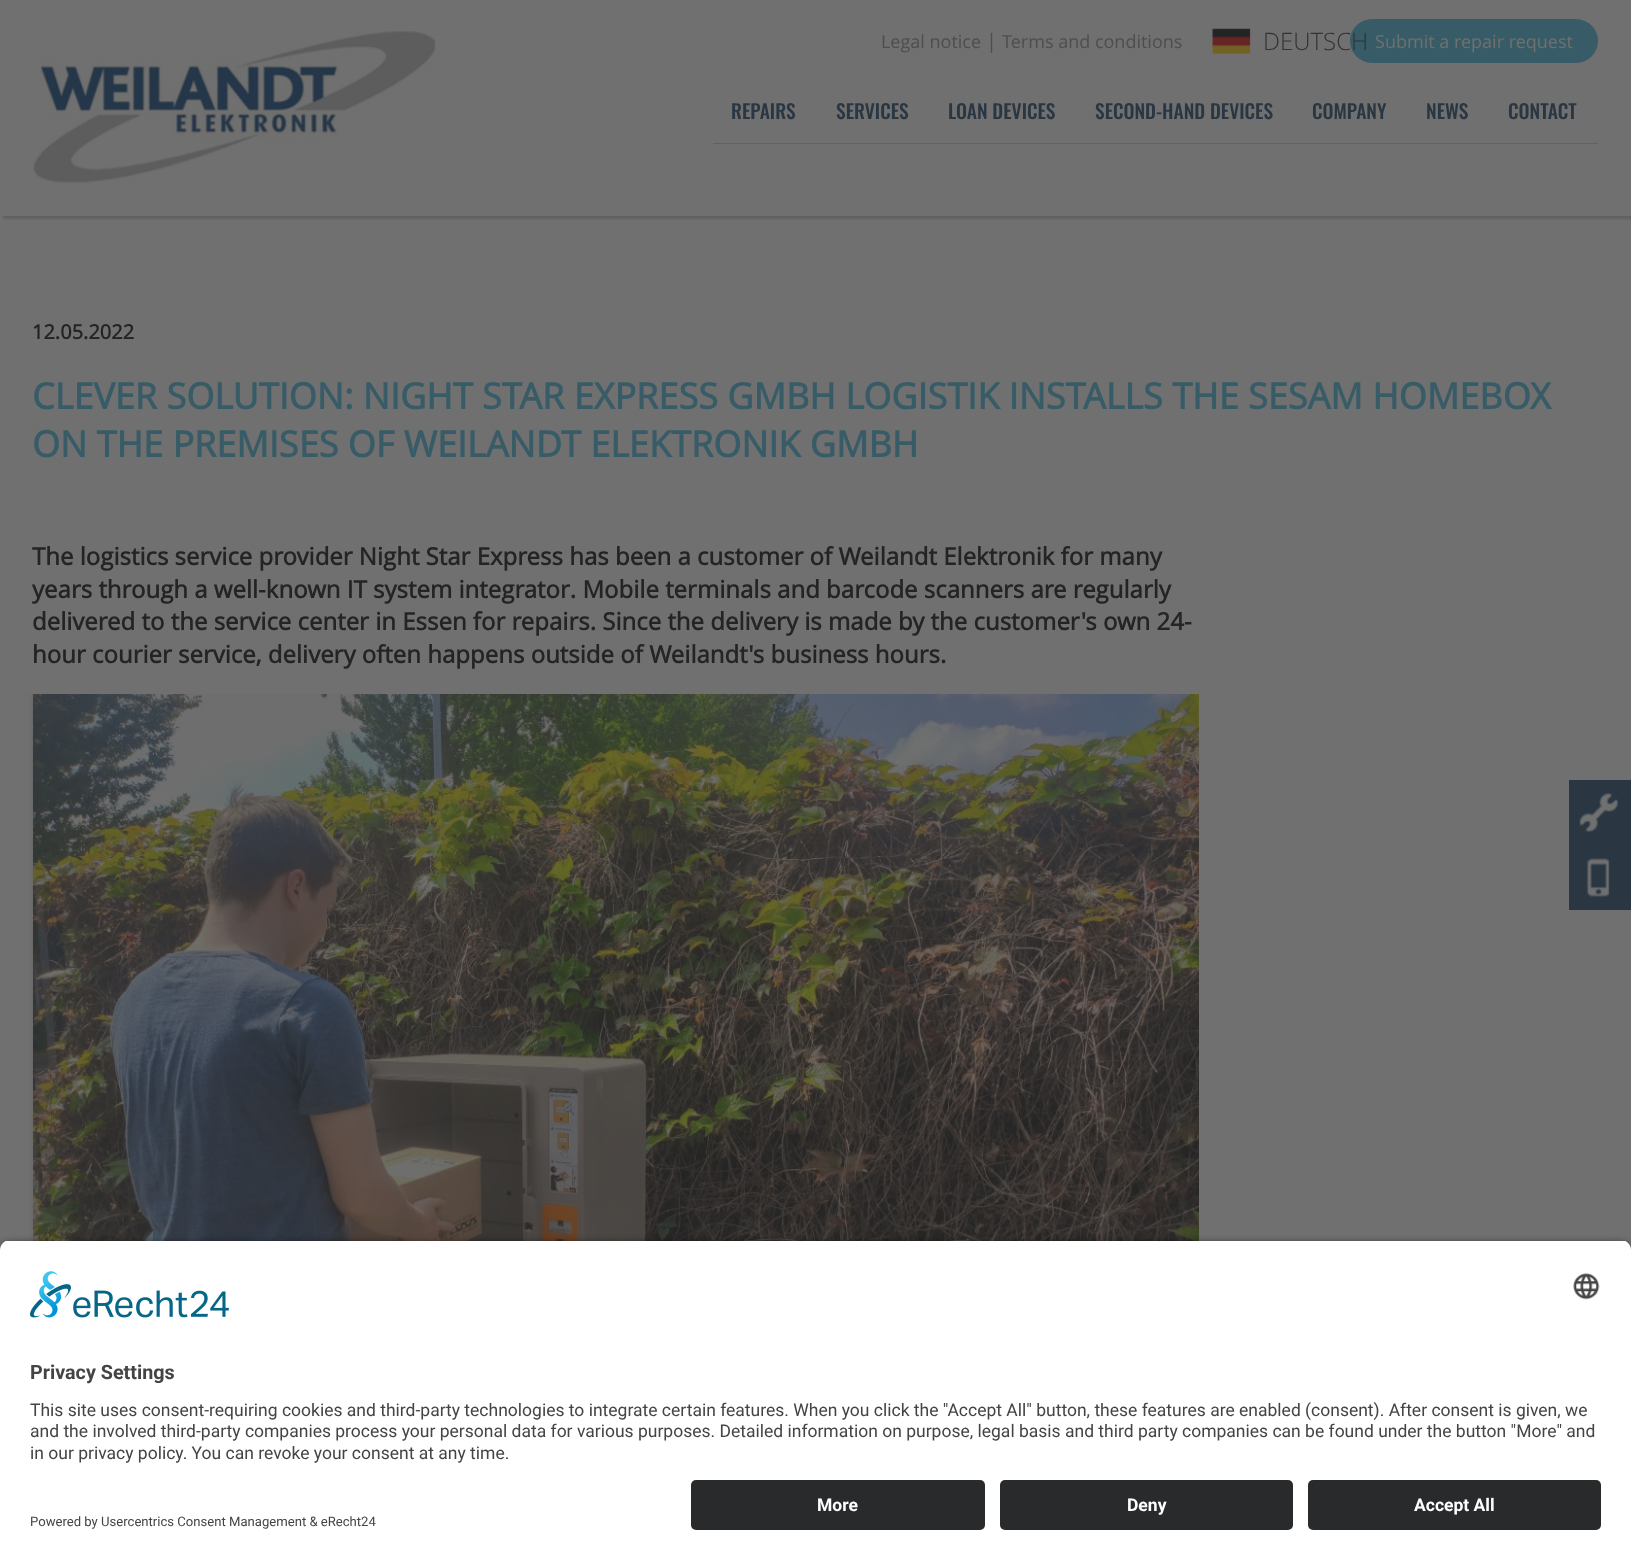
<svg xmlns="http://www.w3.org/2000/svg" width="1631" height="1560">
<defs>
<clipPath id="clip1"><rect x="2" y="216" width="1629" height="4"/></clipPath>
<clipPath id="clip2"><rect x="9" y="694" width="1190" height="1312"/></clipPath>
<clipPath id="clip3"><path d="M10 1240h1611c5.5 0 10 4.5 10 10v220h-1631v-220c0-5.5 4.5-10 10-10z"/></clipPath>
</defs>
<rect width="100%" height="100%" fill="#707070"/>
<g clip-path="url(#clip1)">
<rect x="3" y="3" width="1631" height="216" fill="#24242433" filter="blur(1px)"/>
</g>
<image x="33" y="31" width="403" height="153" href="media/1.png"/>
<text x="881" y="48" style="font-family:Open Sans;font-size:18px;fill:#4e4e4e">Legal notice</text>
<text x="986" y="48" style="font-family:Open Sans;font-size:20px;fill:#4e4e4e">|</text>
<text x="1002" y="48" style="font-family:Open Sans;font-size:18px;fill:#4e4e4e">Terms and conditions</text>
<image x="1212" y="28" width="39" height="26" href="media/2.png"/>
<rect x="1350" y="19" width="248" height="44" rx="22" fill="#385c67"/>
<text x="1263" y="50" style="font-family:Open Sans;font-size:24px;font-weight:300;fill:#333">DEUTSCH</text>
<text x="1375" y="48" style="font-family:Open Sans;font-size:18px;fill:#707070">Submit a repair request</text>
<rect x="713" y="143" width="885" height="1" fill="#616161"/>
<text x="731" y="119" style="font-family:Oswald;font-size:19.5px;font-weight:500;fill:#2a3743">REPAIRS</text>
<text x="836" y="119" style="font-family:Oswald;font-size:19.5px;font-weight:500;fill:#2a3743">SERVICES</text>
<text x="948" y="119" style="font-family:Oswald;font-size:19.5px;font-weight:500;fill:#2a3743">LOAN DEVICES</text>
<text x="1095" y="119" style="font-family:Oswald;font-size:19.5px;font-weight:500;fill:#2a3743">SECOND-HAND DEVICES</text>
<text x="1312" y="119" style="font-family:Oswald;font-size:19.5px;font-weight:500;fill:#2a3743">COMPANY</text>
<text x="1426" y="119" style="font-family:Oswald;font-size:19.5px;font-weight:500;fill:#2a3743">NEWS</text>
<text x="1508" y="119" style="font-family:Oswald;font-size:19.5px;font-weight:500;fill:#2a3743">CONTACT</text>
<text x="32" y="339" style="font-family:Open Sans;font-size:20px;font-weight:bold;fill:#242424">12.05.2022</text>
<text x="32" y="409" style="font-family:Open Sans;font-size:36px;font-weight:bold;fill:#385c67">CLEVER SOLUTION: NIGHT STAR EXPRESS GMBH LOGISTIK INSTALLS THE SESAM HOMEBOX</text>
<text x="32" y="457" style="font-family:Open Sans;font-size:36px;font-weight:bold;fill:#385c67">ON THE PREMISES OF WEILANDT ELEKTRONIK GMBH</text>
<text x="32" y="565" style="font-family:Open Sans;font-size:24px;font-weight:bold;fill:#242424">The logistics service provider Night Star Express has been a customer of Weilandt Elektronik for many</text>
<text x="32" y="598" style="font-family:Open Sans;font-size:24px;font-weight:bold;fill:#242424">years through a well-known IT system integrator. Mobile terminals and barcode scanners are regularly</text>
<text x="32" y="630" style="font-family:Open Sans;font-size:24px;font-weight:bold;fill:#242424">delivered to the service center in Essen for repairs. Since the delivery is made by the customer's own 24-</text>
<text x="32" y="663" style="font-family:Open Sans;font-size:24px;font-weight:bold;fill:#242424">hour courier service, delivery often happens outside of Weilandt's business hours.</text>
<g clip-path="url(#clip2)">
<rect x="33" y="694" width="1166" height="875" fill="#616161" filter="blur(3px)"/>
</g>
<image x="33" y="694" width="1166" height="547" href="media/3.png"/>
<rect x="1569" y="780" width="62" height="130" fill="#2a3743"/>
<image x="1579" y="793" width="39" height="39" href="media/4.png"/>
<image x="1586" y="858" width="24" height="39" href="media/5.png"/>
<rect y="1244" width="1631" height="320" rx="10" fill="#000000cc" filter="blur(4.5px)"/>
<g clip-path="url(#clip3)">
<rect y="1241" width="1631" height="229" fill="#fff"/>
</g>
<image x="30" y="1271" width="199" height="47" href="media/6.png"/>
<image x="1573" y="1273" width="27" height="27" href="media/7.png"/>
<text x="30" y="1379" style="font-family:Roboto;font-size:19.75px;font-weight:bold;fill:#444">Privacy Settings</text>
<text x="30" y="1416" style="font-family:Roboto;font-size:17.5px;fill:#444">This site uses consent-requiring cookies and third-party technologies to integrate certain features. When you click the "Accept All" button, these features are enabled (consent). After consent is given, we</text>
<text x="30" y="1437" style="font-family:Roboto;font-size:17.5px;fill:#444">and the involved third-party companies process your personal data for various purposes. Detailed information on purpose, legal basis and third party companies can be found under the button "More" and</text>
<text x="30" y="1459" style="font-family:Roboto;font-size:17.5px;fill:#444">in our privacy policy. You can revoke your consent at any time.</text>
<rect y="1470" width="1631" height="90" fill="#fff"/>
<rect x="691" y="1480" width="294" height="50" rx="5" fill="#292a2b"/>
<text x="817" y="1511" style="font-family:Roboto;font-size:17.5px;font-weight:bold;fill:#fff">More</text>
<rect x="1000" y="1480" width="293" height="50" rx="5" fill="#292a2b"/>
<text x="1127" y="1511" style="font-family:Roboto;font-size:17.5px;font-weight:bold;fill:#fff">Deny</text>
<rect x="1308" y="1480" width="293" height="50" rx="5" fill="#292a2b"/>
<text x="1414" y="1511" style="font-family:Roboto;font-size:17.5px;font-weight:bold;fill:#fff">Accept All</text>
<text x="30" y="1526" style="font-family:Roboto;font-size:13.1px;fill:#444">Powered by Usercentrics Consent Management &amp; eRecht24</text>
</svg>
